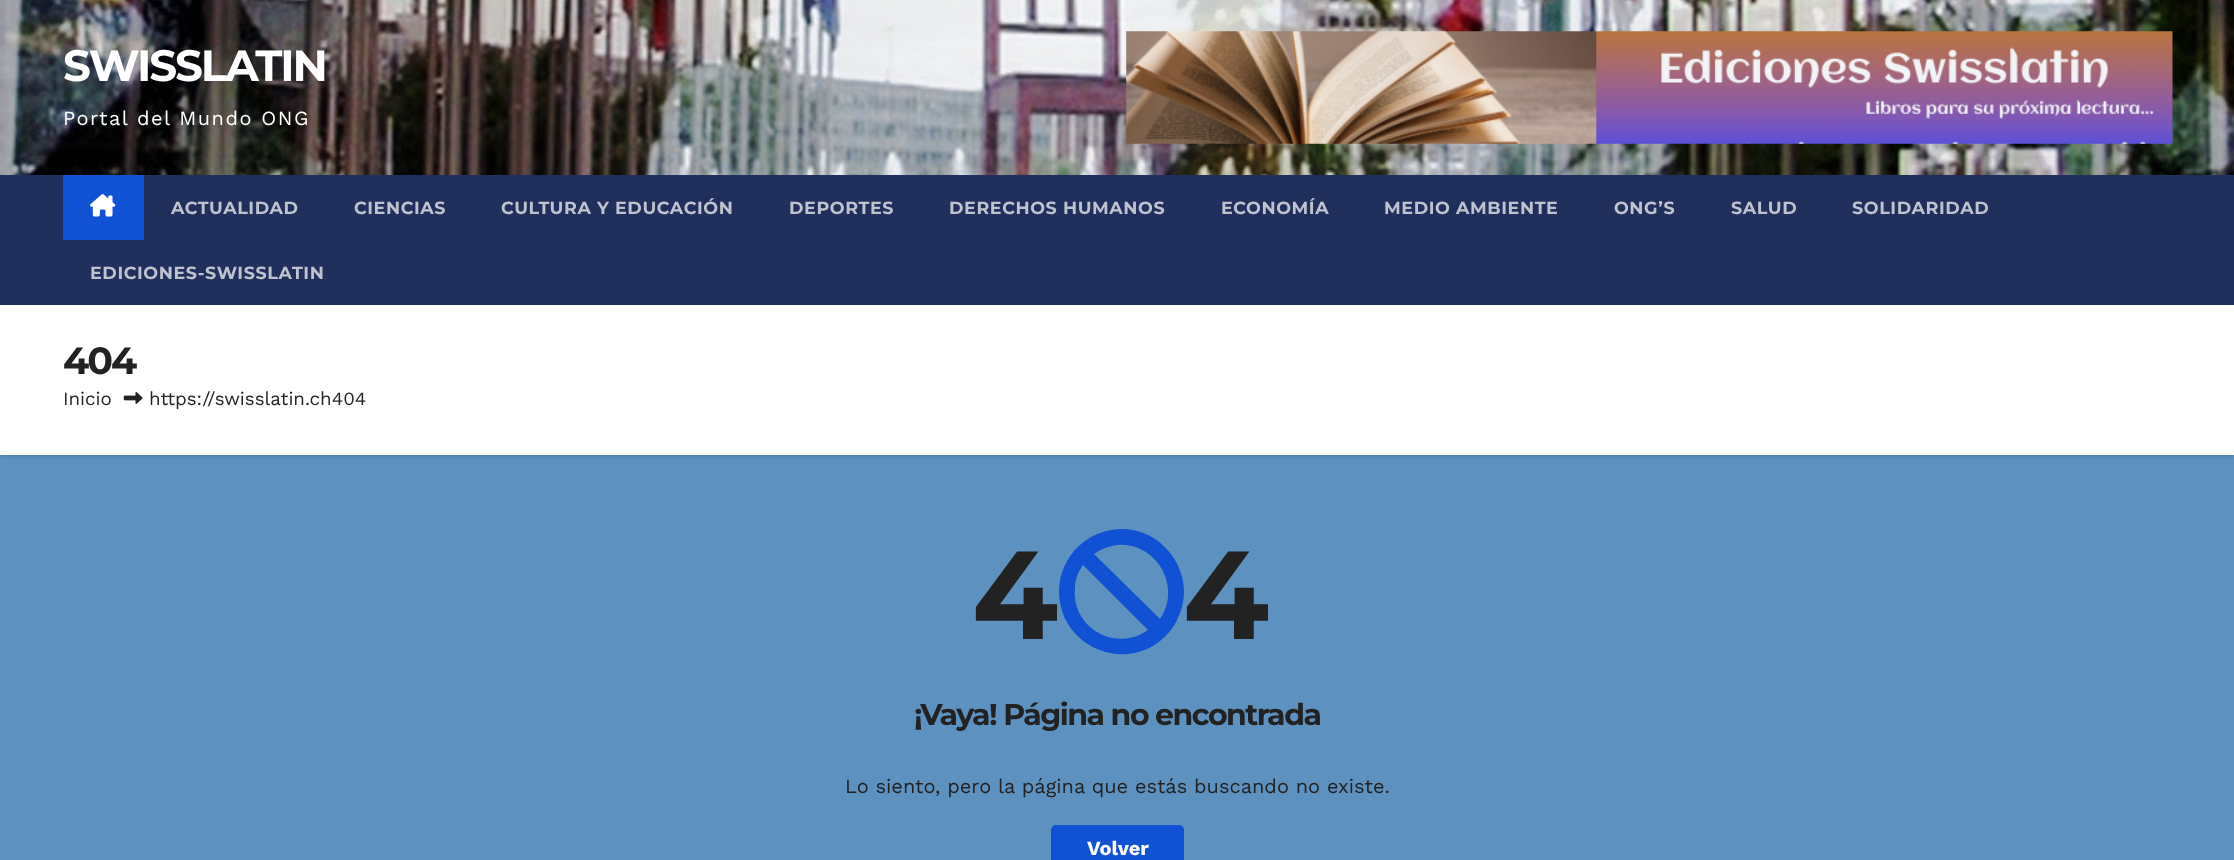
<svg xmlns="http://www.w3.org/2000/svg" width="2234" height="860">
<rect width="100%" height="100%" fill="#5d91bf"/>
<image x="0" y="0" width="2234" height="175" href="media/1.png"/>
<text x="63" y="81" style="font-family:Montserrat;font-size:43.75px;font-weight:bold;letter-spacing:-2.1px;fill:#fff">SWISSLATIN</text>
<text x="63" y="125" style="font-family:Work Sans;font-size:20px;letter-spacing:1.5px;fill:#fff">Portal del Mundo ONG</text>
<image x="1126" y="31" width="1047" height="113" href="media/2.png"/>
<rect y="306" width="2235" height="150" fill="#00000026" filter="blur(2px)"/>
<rect y="175" width="2234" height="130" fill="#202f5b"/>
<rect x="63" y="175" width="81" height="65" fill="#1151d3"/>
<image x="90" y="194" width="26" height="23" href="media/3.png"/>
<text x="171" y="214" style="font-family:Montserrat;font-size:17.5px;font-weight:bold;letter-spacing:0.6px;fill:#bec3cf">ACTUALIDAD</text>
<text x="354" y="214" style="font-family:Montserrat;font-size:17.5px;font-weight:bold;letter-spacing:0.6px;fill:#bec3cf">CIENCIAS</text>
<text x="501" y="214" style="font-family:Montserrat;font-size:17.5px;font-weight:bold;letter-spacing:0.6px;fill:#bec3cf">CULTURA Y EDUCACIÓN</text>
<text x="789" y="214" style="font-family:Montserrat;font-size:17.5px;font-weight:bold;letter-spacing:0.6px;fill:#bec3cf">DEPORTES</text>
<text x="949" y="214" style="font-family:Montserrat;font-size:17.5px;font-weight:bold;letter-spacing:0.6px;fill:#bec3cf">DERECHOS HUMANOS</text>
<text x="1221" y="214" style="font-family:Montserrat;font-size:17.5px;font-weight:bold;letter-spacing:0.6px;fill:#bec3cf">ECONOMÍA</text>
<text x="1384" y="214" style="font-family:Montserrat;font-size:17.5px;font-weight:bold;letter-spacing:0.6px;fill:#bec3cf">MEDIO AMBIENTE</text>
<text x="1614" y="214" style="font-family:Montserrat;font-size:17.5px;font-weight:bold;letter-spacing:0.6px;fill:#bec3cf">ONG’S</text>
<text x="1731" y="214" style="font-family:Montserrat;font-size:17.5px;font-weight:bold;letter-spacing:0.6px;fill:#bec3cf">SALUD</text>
<text x="1852" y="214" style="font-family:Montserrat;font-size:17.5px;font-weight:bold;letter-spacing:0.6px;fill:#bec3cf">SOLIDARIDAD</text>
<text x="90" y="279" style="font-family:Montserrat;font-size:17.5px;font-weight:bold;letter-spacing:0.6px;fill:#bec3cf">EDICIONES-SWISSLATIN</text>
<rect y="305" width="2234" height="150" fill="#fff"/>
<text x="63" y="374" style="font-family:Montserrat;font-size:38px;font-weight:bold;letter-spacing:-2px;fill:#222">404</text>
<text x="63" y="405" style="font-family:Work Sans;font-size:18.75px;fill:#222">Inicio</text>
<image x="123" y="392" width="20" height="12" href="media/4.png"/>
<text x="149" y="405" style="font-family:Work Sans;font-size:18.75px;fill:#222">https://swisslatin.ch404</text>
<text x="972" y="639" style="font-family:Montserrat;font-size:125px;font-weight:bold;letter-spacing:-6px;fill:#222">4</text>
<path d="M1148 630l-65-65c-5 7-8 15-8 23c-4 40 41 65 73 42zm12-11c22-32-3-77-43-74c-8 1-16 4-23 9zm-101-27c1-60 75-86 112-38c8 11 13 24 13 38c0 13-5 27-13 38c-37 47-111 21-112-38z" fill="#1151d3"/>
<text x="1183" y="639" style="font-family:Montserrat;font-size:125px;font-weight:bold;letter-spacing:-6px;fill:#222">4</text>
<text x="914" y="725" style="font-family:Montserrat;font-size:30px;font-weight:bold;letter-spacing:-1.5px;fill:#222">¡Vaya! Página no encontrada</text>
<text x="845" y="793" style="font-family:Work Sans;font-size:20px;fill:#222">Lo siento, pero la página que estás buscando no existe.</text>
<rect x="1052.5" y="826.5" width="130" height="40" rx="3.5" fill="#1151d3" stroke="#1151d3" stroke-width="3"/>
<text x="1087" y="855" style="font-family:Work Sans;font-size:20px;font-weight:bold;fill:#fff">Volver</text>
</svg>
